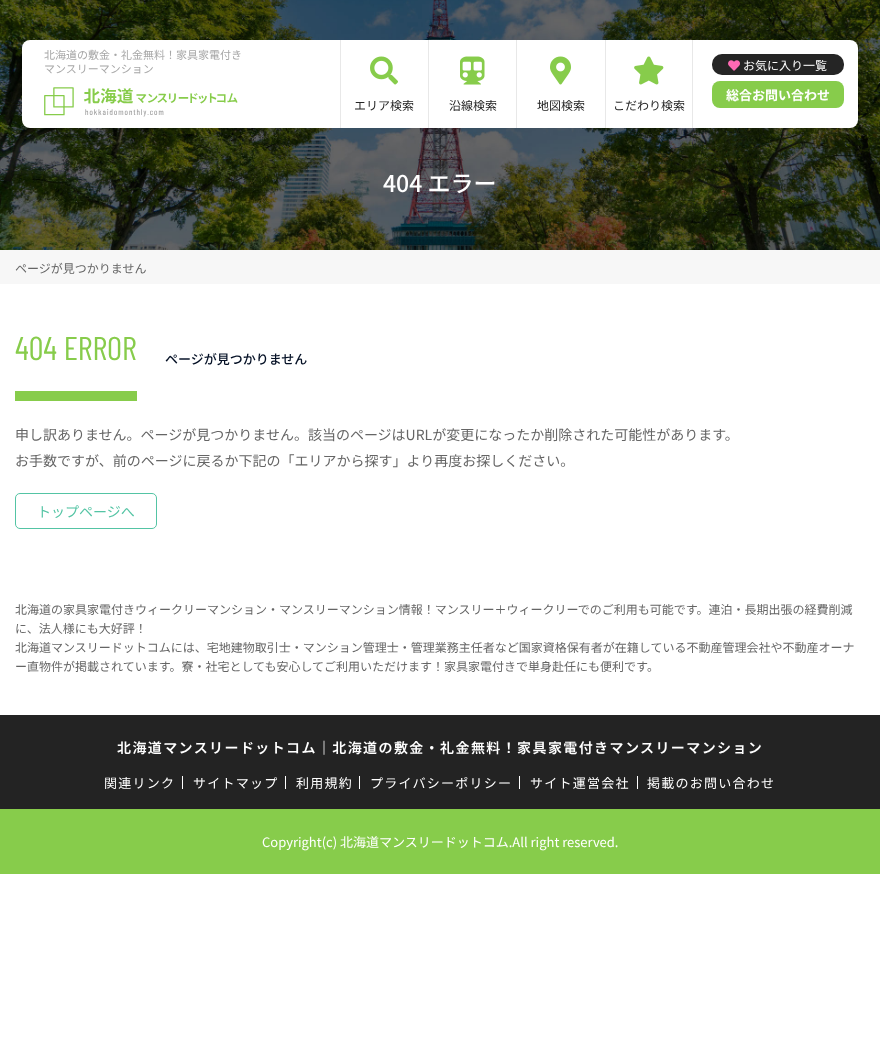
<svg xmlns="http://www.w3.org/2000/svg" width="880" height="1042">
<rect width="100%" height="100%" fill="#fff"/>
<image x="0" y="0" width="880" height="250" href="media/1.png"/>
<rect x="22" y="40" width="836" height="88" rx="8" fill="#fff"/>
<text x="44" y="59" style="font-family:Noto Sans JP;font-size:11px;fill:#a7a7a7">北海道の敷金・礼金無料！家具家電付き</text>
<text x="44" y="73" style="font-family:Noto Sans JP;font-size:11px;fill:#a7a7a7">マンスリーマンション</text>
<image x="44" y="87" width="194" height="30" href="media/2.png"/>
<rect x="712" y="54" width="132" height="21" rx="10" fill="#252525"/>
<image x="728" y="60" width="12" height="11" href="media/3.png"/>
<text x="743" y="70" style="font-family:Noto Sans JP;font-size:12px;fill:#fff">お気に入り一覧</text>
<rect x="712" y="81" width="132" height="27" rx="8" fill="#87cc4b"/>
<text x="726" y="100" style="font-family:Noto Sans JP;font-size:13px;font-weight:bold;fill:#fff">総合お問い合わせ</text>
<rect x="340" y="40" width="1" height="88" fill="#e8e8e8"/>
<image x="370" y="56" width="28" height="29" href="media/4.png"/>
<text x="354" y="110" style="font-family:Noto Sans JP;font-size:12px;fill:#252525">エリア検索</text>
<rect x="428" y="40" width="1" height="88" fill="#e8e8e8"/>
<image x="460" y="56" width="25" height="29" href="media/5.png"/>
<text x="449" y="110" style="font-family:Noto Sans JP;font-size:12px;fill:#252525">沿線検索</text>
<rect x="516" y="40" width="1" height="88" fill="#e8e8e8"/>
<image x="550" y="56" width="21" height="29" href="media/6.png"/>
<text x="537" y="110" style="font-family:Noto Sans JP;font-size:12px;fill:#252525">地図検索</text>
<rect x="692" y="40" width="1" height="88" fill="#e8e8e8"/>
<rect x="605" y="40" width="1" height="88" fill="#e8e8e8"/>
<image x="634" y="56" width="30" height="29" href="media/7.png"/>
<text x="613" y="110" style="font-family:Noto Sans JP;font-size:12px;fill:#252525">こだわり検索</text>
<text x="383" y="192" style="font-family:Noto Sans JP;font-size:23px;font-weight:500;fill:#fff">404 エラー</text>
<rect y="250" width="880" height="34" fill="#f7f7f7"/>
<text x="15" y="273" style="font-family:Noto Sans JP;font-size:12px;fill:#656565">ページが見つかりません</text>
<rect x="15" y="391" width="122" height="10" fill="#87cc4b"/>
<text x="15" y="360" style="font-family:Barlow Condensed;font-size:33px;fill:#87cc4b">404 ERROR</text>
<text x="165" y="364" style="font-family:Noto Sans JP;font-size:13px;font-weight:500;fill:#041025">ページが見つかりません</text>
<text x="15" y="440" style="font-family:Noto Sans JP;font-size:14px;fill:#656565">申し訳ありません。ページが見つかりません。該当のページはURLが変更になったか削除された可能性があります。</text>
<text x="15" y="466" style="font-family:Noto Sans JP;font-size:14px;fill:#656565">お手数ですが、前のページに戻るか下記の「エリアから探す」より再度お探しください。</text>
<rect x="15.5" y="493.5" width="141" height="35" rx="4.5" fill="none" stroke="#54c4a4"/>
<text x="37" y="517" style="font-family:Noto Sans JP;font-size:14px;fill:#54c4a4">トップページへ</text>
<text x="15" y="614" style="font-family:Noto Sans JP;font-size:12px;fill:#656565">北海道の家具家電付きウィークリーマンション・マンスリーマンション情報！マンスリー＋ウィークリーでのご利用も可能です。連泊・長期出張の経費削減</text>
<text x="15" y="633" style="font-family:Noto Sans JP;font-size:12px;fill:#656565">に、法人様にも大好評！</text>
<text x="15" y="652" style="font-family:Noto Sans JP;font-size:12px;fill:#656565">北海道マンスリードットコムには、宅地建物取引士・マンション管理士・管理業務主任者など国家資格保有者が在籍している不動産管理会社や不動産オーナ</text>
<text x="15" y="671" style="font-family:Noto Sans JP;font-size:12px;fill:#656565">ー直物件が掲載されています。寮・社宅としても安心してご利用いただけます！家具家電付きで単身赴任にも便利です。</text>
<rect y="715" width="880" height="94" fill="#232323"/>
<text x="117" y="753" style="font-family:Noto Sans JP;font-size:14px;font-weight:600;letter-spacing:1.4px;fill:#fff">北海道マンスリードットコム｜北海道の敷金・礼金無料！家具家電付きマンスリーマンション</text>
<rect x="182" y="776" width="1" height="13" fill="#fff"/>
<text x="104" y="788" style="font-family:Noto Sans JP;font-size:13px;letter-spacing:1.25px;fill:#fff">関連リンク</text>
<rect x="285" y="776" width="1" height="13" fill="#fff"/>
<text x="193" y="788" style="font-family:Noto Sans JP;font-size:13px;letter-spacing:1.25px;fill:#fff">サイトマップ</text>
<rect x="359" y="776" width="1" height="13" fill="#fff"/>
<text x="296" y="788" style="font-family:Noto Sans JP;font-size:13px;letter-spacing:1.25px;fill:#fff">利用規約</text>
<rect x="519" y="776" width="1" height="13" fill="#fff"/>
<text x="370" y="788" style="font-family:Noto Sans JP;font-size:13px;letter-spacing:1.25px;fill:#fff">プライバシーポリシー</text>
<rect x="637" y="776" width="1" height="13" fill="#fff"/>
<text x="530" y="788" style="font-family:Noto Sans JP;font-size:13px;letter-spacing:1.25px;fill:#fff">サイト運営会社</text>
<text x="647" y="788" style="font-family:Noto Sans JP;font-size:13px;letter-spacing:1.25px;fill:#fff">掲載のお問い合わせ</text>
<rect y="809" width="880" height="65" fill="#87cc4b"/>
<text x="262" y="847" style="font-family:Noto Sans JP;font-size:13px;fill:#fff">Copyright(c) 北海道マンスリードットコム.All right reserved.</text>
</svg>
